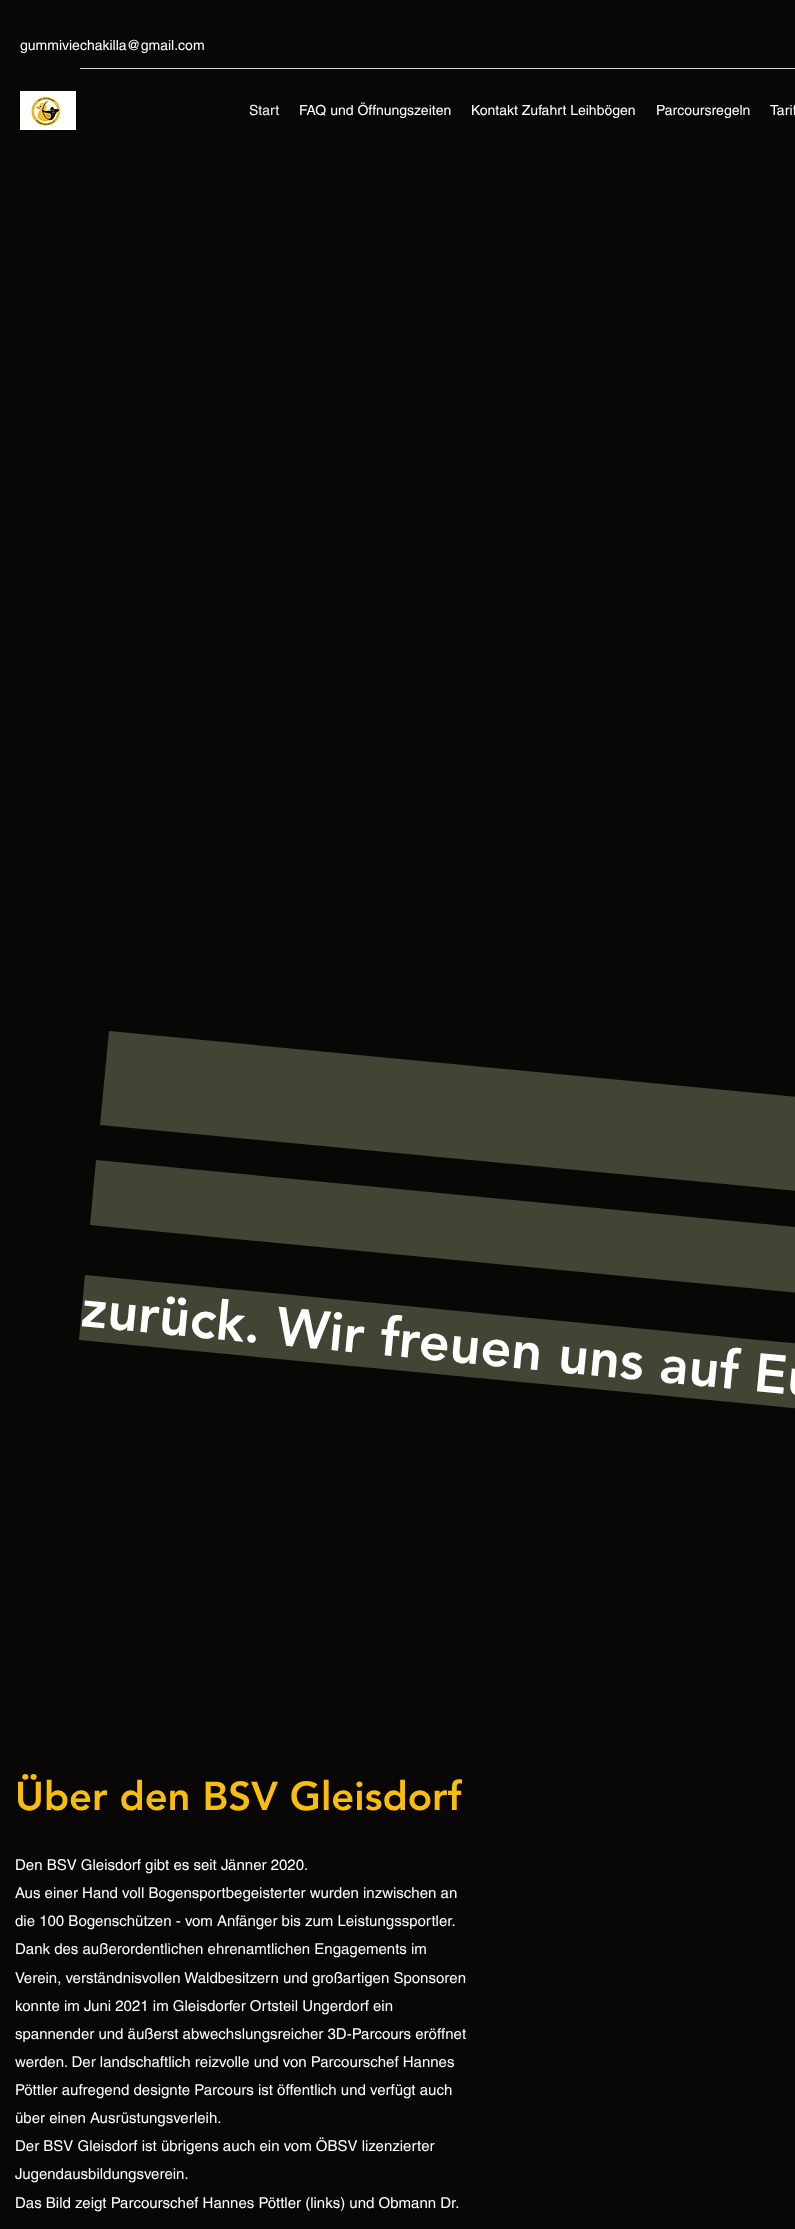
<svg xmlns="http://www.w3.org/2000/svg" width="795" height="2229">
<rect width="100%" height="100%" fill="#090706"/>
<text x="20" y="50" style="font-family:helvetica;font-size:14px;fill:#fff">gummiviechakilla@gmail.com</text>
<rect x="80" y="68" width="715" height="1" fill="#dadada"/>
<image x="20" y="91" width="56" height="39" href="media/1.png"/>
<text x="249" y="115" style="font-family:helvetica;font-size:14px;fill:#f4f4f1">Start</text>
<text x="299" y="115" style="font-family:helvetica;font-size:14px;fill:#fff">FAQ und Öffnungszeiten</text>
<text x="471" y="115" style="font-family:helvetica;font-size:14px;fill:#fff">Kontakt Zufahrt Leihbögen</text>
<text x="656" y="115" style="font-family:helvetica;font-size:14px;fill:#fff">Parcoursregeln</text>
<text x="770" y="115" style="font-family:helvetica;font-size:14px;fill:#fff">Tarif</text>
<path d="M109 1031l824 79l-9 93l-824-78z" fill="#444435"/>
<path d="M96 1160l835 80l-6 65l-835-80z" fill="#444435"/>
<path d="M85 1275l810 78l-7 64l-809-77z" fill="#444435"/>
<text x="80" y="1326" transform="rotate(5.5 80 1326)" style="font-family:'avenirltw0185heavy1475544';font-size:54px;font-weight:900;fill:#fff">zurück. Wir freuen uns auf Euch!</text>
<text x="15" y="1810" style="font-family:'avenirltw0185heavy1475544';font-size:40px;font-weight:900;fill:#f9be0d">Über den BSV Gleisdorf</text>
<text x="15" y="1870" style="font-family:helvetica;font-size:15px;fill:#fff">Den BSV Gleisdorf gibt es seit Jänner 2020.</text>
<text x="15" y="1898" style="font-family:helvetica;font-size:15px;fill:#fff">Aus einer Hand voll Bogensportbegeisterter wurden inzwischen an</text>
<text x="15" y="1926" style="font-family:helvetica;font-size:15px;fill:#fff">die 100 Bogenschützen - vom Anfänger bis zum Leistungssportler.</text>
<text x="15" y="1954" style="font-family:helvetica;font-size:15px;fill:#fff">Dank des außerordentlichen ehrenamtlichen Engagements im</text>
<text x="15" y="1983" style="font-family:helvetica;font-size:15px;fill:#fff">Verein, verständnisvollen Waldbesitzern und großartigen Sponsoren</text>
<text x="15" y="2011" style="font-family:helvetica;font-size:15px;fill:#fff">konnte im Juni 2021 im Gleisdorfer Ortsteil Ungerdorf ein</text>
<text x="15" y="2039" style="font-family:helvetica;font-size:15px;fill:#fff">spannender und äußerst abwechslungsreicher 3D-Parcours eröffnet</text>
<text x="15" y="2067" style="font-family:helvetica;font-size:15px;fill:#fff">werden. Der landschaftlich reizvolle und von Parcourschef Hannes</text>
<text x="15" y="2095" style="font-family:helvetica;font-size:15px;fill:#fff">Pöttler aufregend designte Parcours ist öffentlich und verfügt auch</text>
<text x="15" y="2123" style="font-family:helvetica;font-size:15px;fill:#fff">über einen Ausrüstungsverleih.</text>
<text x="15" y="2151" style="font-family:helvetica;font-size:15px;fill:#fff">Der BSV Gleisdorf ist übrigens auch ein vom ÖBSV lizenzierter</text>
<text x="15" y="2179" style="font-family:helvetica;font-size:15px;fill:#fff">Jugendausbildungsverein.</text>
<text x="15" y="2208" style="font-family:helvetica;font-size:15px;fill:#fff">Das Bild zeigt Parcourschef Hannes Pöttler (links) und Obmann Dr.</text>
</svg>
